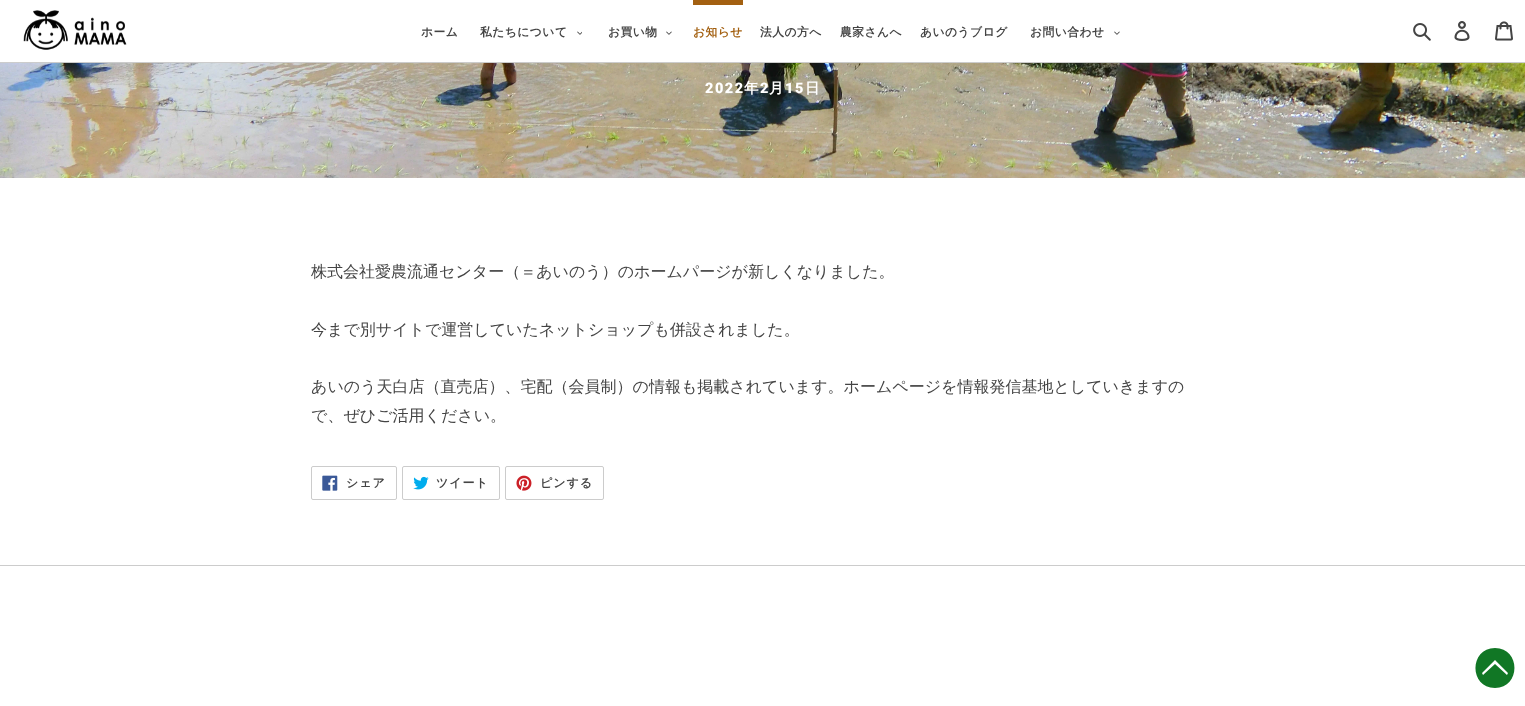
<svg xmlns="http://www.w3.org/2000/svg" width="1525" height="706">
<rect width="100%" height="100%" fill="#fff"/>
<rect y="62" width="1525" height="1" fill="#ccc"/>
<image x="23" y="10" width="104" height="40" href="media/1.png"/>
<text x="421" y="36" style="font-family:WenQuanYi Zen Hei;font-size:11.75px;font-weight:bold;letter-spacing:0.5px;fill:#444">ホーム</text>
<text x="480" y="36" style="font-family:WenQuanYi Zen Hei;font-size:11.75px;font-weight:bold;letter-spacing:0.5px;fill:#444">私たちについて</text>
<image x="577" y="31" width="5" height="4" href="media/2.png"/>
<text x="608" y="36" style="font-family:WenQuanYi Zen Hei;font-size:11.75px;font-weight:bold;letter-spacing:0.5px;fill:#444">お買い物</text>
<image x="666" y="31" width="6" height="4" href="media/3.png"/>
<text x="693" y="36" style="font-family:WenQuanYi Zen Hei;font-size:11.75px;font-weight:bold;letter-spacing:0.5px;fill:#a36011">お知らせ</text>
<rect x="693" width="50" height="5" fill="#a36011"/>
<text x="760" y="36" style="font-family:WenQuanYi Zen Hei;font-size:11.75px;font-weight:bold;letter-spacing:0.5px;fill:#444">法人の方へ</text>
<text x="840" y="36" style="font-family:WenQuanYi Zen Hei;font-size:11.75px;font-weight:bold;letter-spacing:0.5px;fill:#444">農家さんへ</text>
<text x="920" y="36" style="font-family:WenQuanYi Zen Hei;font-size:11.75px;font-weight:bold;letter-spacing:0.5px;fill:#444">あいのうブログ</text>
<text x="1030" y="36" style="font-family:WenQuanYi Zen Hei;font-size:11.75px;font-weight:bold;letter-spacing:0.5px;fill:#444">お問い合わせ</text>
<image x="1114" y="31" width="6" height="4" href="media/3.png"/>
<image x="1413" y="23" width="18" height="18" href="media/4.png"/>
<image x="1454" y="21" width="16" height="20" href="media/5.png"/>
<image x="1495" y="21" width="18" height="20" href="media/6.png"/>
<image x="0" y="63" width="1525" height="115" href="media/7.png"/>
<text x="705" y="93" style="font-family:Roboto;font-size:14.5px;font-weight:900;letter-spacing:1.5px;fill:#fff">2022</text>
<text x="744" y="93" style="font-family:WenQuanYi Zen Hei;font-size:14.5px;font-weight:bold;letter-spacing:1.5px;fill:#fff">年</text>
<text x="760" y="93" style="font-family:Roboto;font-size:14.5px;font-weight:900;letter-spacing:1.5px;fill:#fff">2</text>
<text x="769" y="93" style="font-family:WenQuanYi Zen Hei;font-size:14.5px;font-weight:bold;letter-spacing:1.5px;fill:#fff">月</text>
<text x="785" y="93" style="font-family:Roboto;font-size:14.5px;font-weight:900;letter-spacing:1.5px;fill:#fff">15</text>
<text x="805" y="93" style="font-family:WenQuanYi Zen Hei;font-size:14.5px;font-weight:bold;letter-spacing:1.5px;fill:#fff">日</text>
<text x="311" y="277" style="font-family:WenQuanYi Zen Hei;font-size:16px;font-weight:500;fill:#444">株式会社愛農流通センター（＝あいのう）のホームパージが新しくなりました。</text>
<text x="311" y="335" style="font-family:WenQuanYi Zen Hei;font-size:16px;font-weight:500;fill:#444">今まで別サイトで運営していたネットショップも併設されました。</text>
<text x="311" y="392" style="font-family:WenQuanYi Zen Hei;font-size:16px;font-weight:500;fill:#444">あいのう天白店（直売店）、宅配（会員制）の情報も掲載されています。ホームページを情報発信基地としていきますの</text>
<text x="311" y="421" style="font-family:WenQuanYi Zen Hei;font-size:16px;font-weight:500;fill:#444">で、ぜひご活用ください。</text>
<rect x="311.5" y="466.5" width="85" height="33" rx="1.5" fill="none" stroke="#ccc"/>
<image x="322" y="475" width="16" height="16" href="media/8.png"/>
<text x="346" y="487" style="font-family:WenQuanYi Zen Hei;font-size:12px;font-weight:bold;letter-spacing:1px;fill:#444">シェア</text>
<rect x="402.5" y="466.5" width="97" height="33" rx="1.5" fill="none" stroke="#ccc"/>
<image x="413" y="476" width="16" height="14" href="media/9.png"/>
<text x="436" y="487" style="font-family:WenQuanYi Zen Hei;font-size:12px;font-weight:bold;letter-spacing:1px;fill:#444">ツイート</text>
<rect x="505.5" y="466.5" width="98" height="33" rx="1.5" fill="none" stroke="#ccc"/>
<image x="516" y="475" width="16" height="16" href="media/10.png"/>
<text x="540" y="487" style="font-family:WenQuanYi Zen Hei;font-size:12px;font-weight:bold;letter-spacing:1px;fill:#444">ピンする</text>
<rect y="565" width="1525" height="1" fill="#ccc"/>
<path d="M1495 648c-26 0-26 40 0 40c26 0 26-40 0-40zm12 27l-12-11l-12 11l-1-2l13-13l13 13z" fill="#117725" fill-rule="evenodd"/>
</svg>
